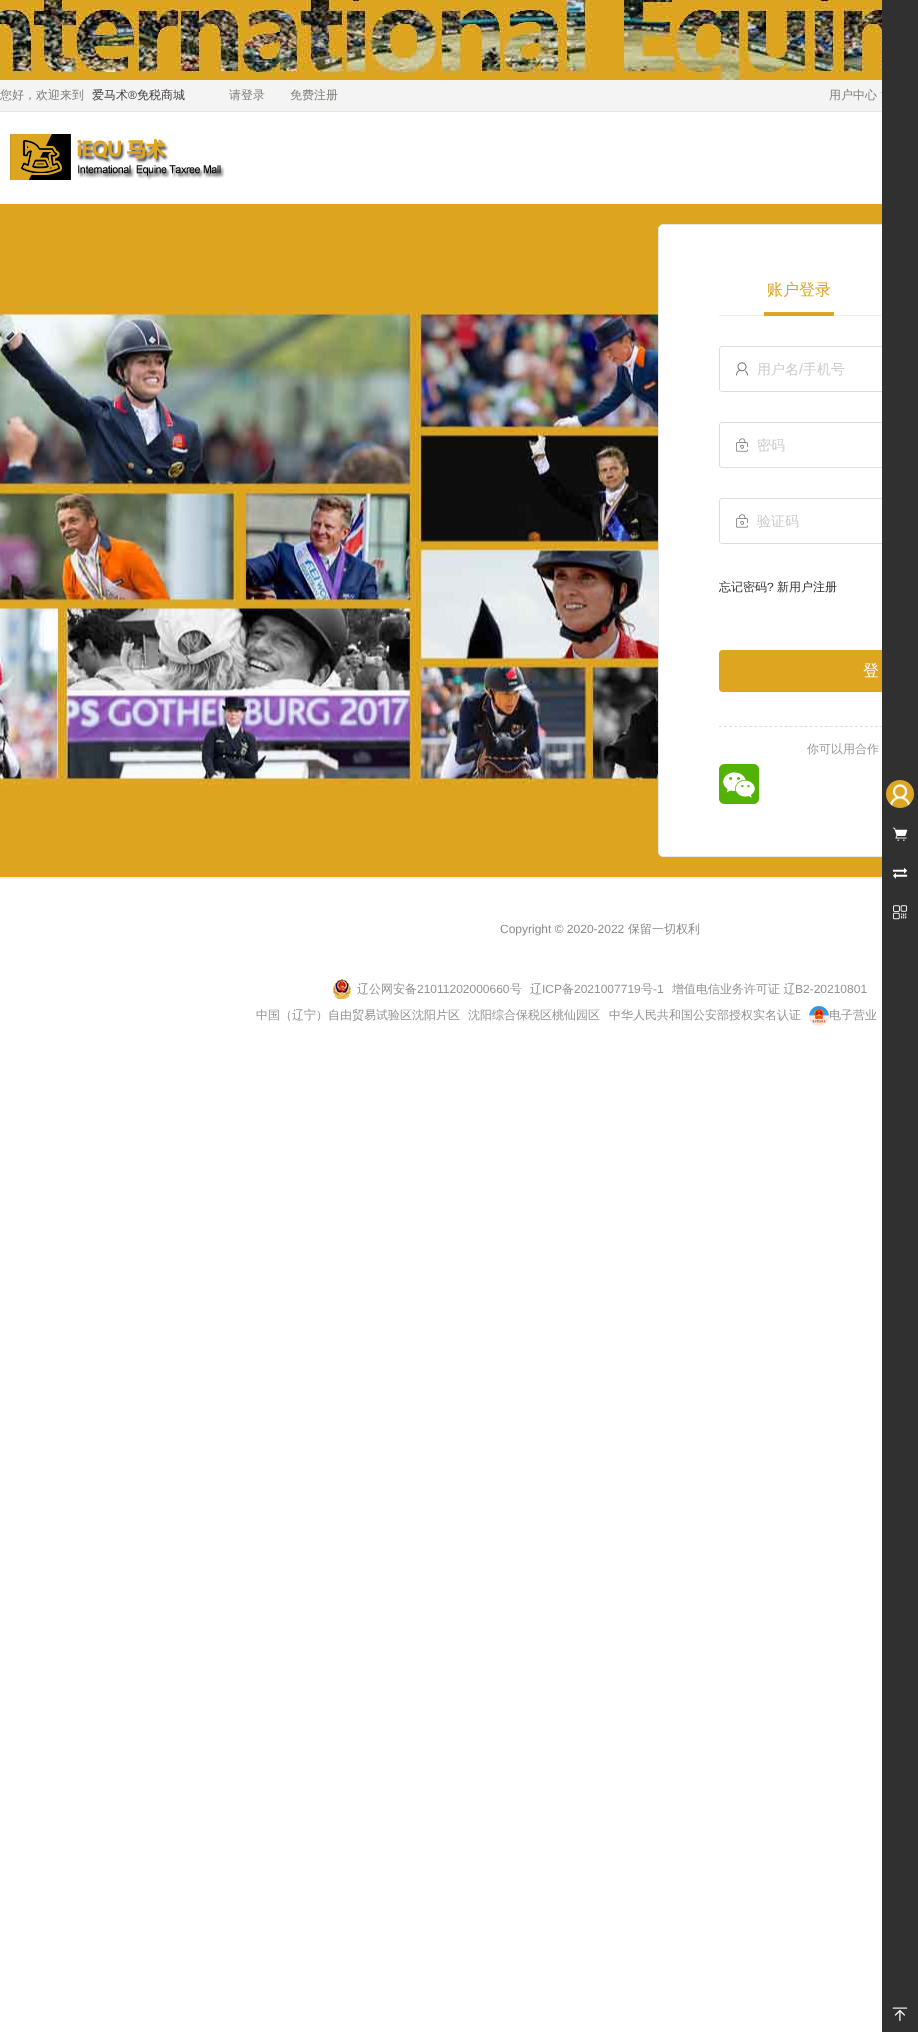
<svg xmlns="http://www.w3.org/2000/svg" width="918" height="2032">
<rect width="100%" height="100%" fill="#fff"/>
<image x="0" y="0" width="882" height="80" href="media/1.png"/>
<rect y="80" width="882" height="31" fill="#f5f4f4"/>
<path d="M880 92h8l-4 4z" fill="#cecece"/>
<image x="0" y="204" width="882" height="673" href="media/8.png"/>
<rect x="658.5" y="224.5" width="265" height="632" rx="4.5" fill="#fff" stroke="#e6e6e6"/>
<rect x="719.5" y="346.5" width="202" height="45" rx="2.5" fill="none" stroke="#ddd"/>
<rect x="719.5" y="422.5" width="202" height="45" rx="2.5" fill="none" stroke="#ddd"/>
<rect x="719.5" y="498.5" width="168" height="45" rx="2.5" fill="none" stroke="#ddd"/>
<rect x="719" y="650" width="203" height="42" rx="4" fill="#dda520"/>
<path d="M719 726.5h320" fill="none" stroke="#ddd" stroke-dasharray="3 2.03"/>
<rect x="882" width="36" height="2032" fill="#303030"/>
<image x="886" y="780" width="28" height="28" href="media/2.png"/>
<image x="892" y="827" width="16" height="14" href="media/3.png"/>
<image x="892" y="868" width="16" height="11" href="media/4.png"/>
<image x="893" y="905" width="14" height="15" href="media/5.png"/>
<image x="892" y="2007" width="16" height="14" href="media/6.png"/>
<rect y="111" width="882" height="1" fill="#e6e6e6"/>
<text x="0" y="99" style="font-family:WenQuanYi Zen Hei;font-size:12px;font-weight:500;fill:#7f7f7a">您好，欢迎来到</text>
<text x="92" y="99" style="font-family:WenQuanYi Zen Hei;font-size:12px;font-weight:500;fill:#3e3a39">爱马术</text>
<text x="128" y="99" style="font-family:Liberation Sans;font-size:12px;fill:#3e3a39">®</text>
<text x="137" y="99" style="font-family:WenQuanYi Zen Hei;font-size:12px;font-weight:500;fill:#3e3a39">免税商城</text>
<text x="229" y="99" style="font-family:WenQuanYi Zen Hei;font-size:12px;font-weight:500;fill:#7f7f7a">请登录</text>
<text x="290" y="99" style="font-family:WenQuanYi Zen Hei;font-size:12px;font-weight:500;fill:#7f7f7a">免费注册</text>
<text x="829" y="99" style="font-family:WenQuanYi Zen Hei;font-size:12px;font-weight:500;fill:#7f7f7a">用户中心</text>
<image x="10" y="134" width="215" height="46" href="media/7.png"/>
<rect x="719" y="315" width="163" height="1" fill="#eee"/>
<text x="767" y="295" style="font-family:WenQuanYi Zen Hei;font-size:16px;font-weight:500;fill:#dda520">账户登录</text>
<rect x="764" y="312" width="70" height="4" fill="#dda523"/>
<image x="736" y="362" width="12" height="14" href="media/9.png"/>
<text x="757" y="374" style="font-family:WenQuanYi Zen Hei;font-size:14px;font-weight:500;fill:#ccc">用户名</text>
<text x="799" y="374" style="font-family:Liberation Sans;font-size:14px;fill:#ccc">/</text>
<text x="803" y="374" style="font-family:WenQuanYi Zen Hei;font-size:14px;font-weight:500;fill:#ccc">手机号</text>
<image x="736" y="438" width="12" height="14" href="media/10.png"/>
<text x="757" y="450" style="font-family:WenQuanYi Zen Hei;font-size:14px;font-weight:500;fill:#ccc">密码</text>
<image x="736" y="514" width="12" height="14" href="media/10.png"/>
<text x="757" y="526" style="font-family:WenQuanYi Zen Hei;font-size:14px;font-weight:500;fill:#ccc">验证码</text>
<text x="719" y="591" style="font-family:WenQuanYi Zen Hei;font-size:12px;font-weight:500;fill:#333">忘记密码</text>
<text x="767" y="591" style="font-family:Liberation Sans;font-size:12px;fill:#333">?</text>
<text x="777" y="591" style="font-family:WenQuanYi Zen Hei;font-size:12px;font-weight:500;fill:#333">新用户注册</text>
<text x="863" y="676" style="font-family:WenQuanYi Zen Hei;font-size:16px;font-weight:500;fill:#fff">登</text>
<text x="807" y="753" style="font-family:WenQuanYi Zen Hei;font-size:12px;font-weight:500;fill:#999">你可以用合作</text>
<image x="719" y="764" width="40" height="40" href="media/11.png"/>
<rect y="877" width="882" height="2" fill="#ededed"/>
<text x="500" y="933" style="font-family:Liberation Sans;font-size:12px;fill:#8b8b8b">Copyright © 2020-2022</text>
<text x="628" y="933" style="font-family:WenQuanYi Zen Hei;font-size:12px;font-weight:500;fill:#8b8b8b">保留一切权利</text>
<image x="333" y="979" width="18" height="20" href="media/12.png"/>
<text x="357" y="993" style="font-family:WenQuanYi Zen Hei;font-size:12px;font-weight:500;fill:#939393">辽公网安备</text>
<text x="417" y="993" style="font-family:Liberation Sans;font-size:12px;fill:#939393">21011202000660</text>
<text x="510" y="993" style="font-family:WenQuanYi Zen Hei;font-size:12px;font-weight:500;fill:#939393">号</text>
<text x="530" y="993" style="font-family:WenQuanYi Zen Hei;font-size:12px;font-weight:500;fill:#939393">辽</text>
<text x="542" y="993" style="font-family:Liberation Sans;font-size:12px;fill:#939393">ICP</text>
<text x="562" y="993" style="font-family:WenQuanYi Zen Hei;font-size:12px;font-weight:500;fill:#939393">备</text>
<text x="574" y="993" style="font-family:Liberation Sans;font-size:12px;fill:#939393">2021007719</text>
<text x="641" y="993" style="font-family:WenQuanYi Zen Hei;font-size:12px;font-weight:500;fill:#939393">号</text>
<text x="653" y="993" style="font-family:Liberation Sans;font-size:12px;fill:#939393">-1</text>
<text x="672" y="993" style="font-family:WenQuanYi Zen Hei;font-size:12px;font-weight:500;fill:#939393">增值电信业务许可证 辽</text>
<text x="795" y="993" style="font-family:Liberation Sans;font-size:12px;fill:#939393">B2-20210801</text>
<text x="256" y="1019" style="font-family:WenQuanYi Zen Hei;font-size:12px;font-weight:500;fill:#939393">中国（辽宁）自由贸易试验区沈阳片区</text>
<text x="468" y="1019" style="font-family:WenQuanYi Zen Hei;font-size:12px;font-weight:500;fill:#939393">沈阳综合保税区桃仙园区</text>
<text x="609" y="1019" style="font-family:WenQuanYi Zen Hei;font-size:12px;font-weight:500;fill:#939393">中华人民共和国公安部授权实名认证</text>
<image x="809" y="1006" width="20" height="20" href="media/13.png"/>
<text x="829" y="1019" style="font-family:WenQuanYi Zen Hei;font-size:12px;font-weight:500;fill:#939393">电子营业</text>
</svg>
